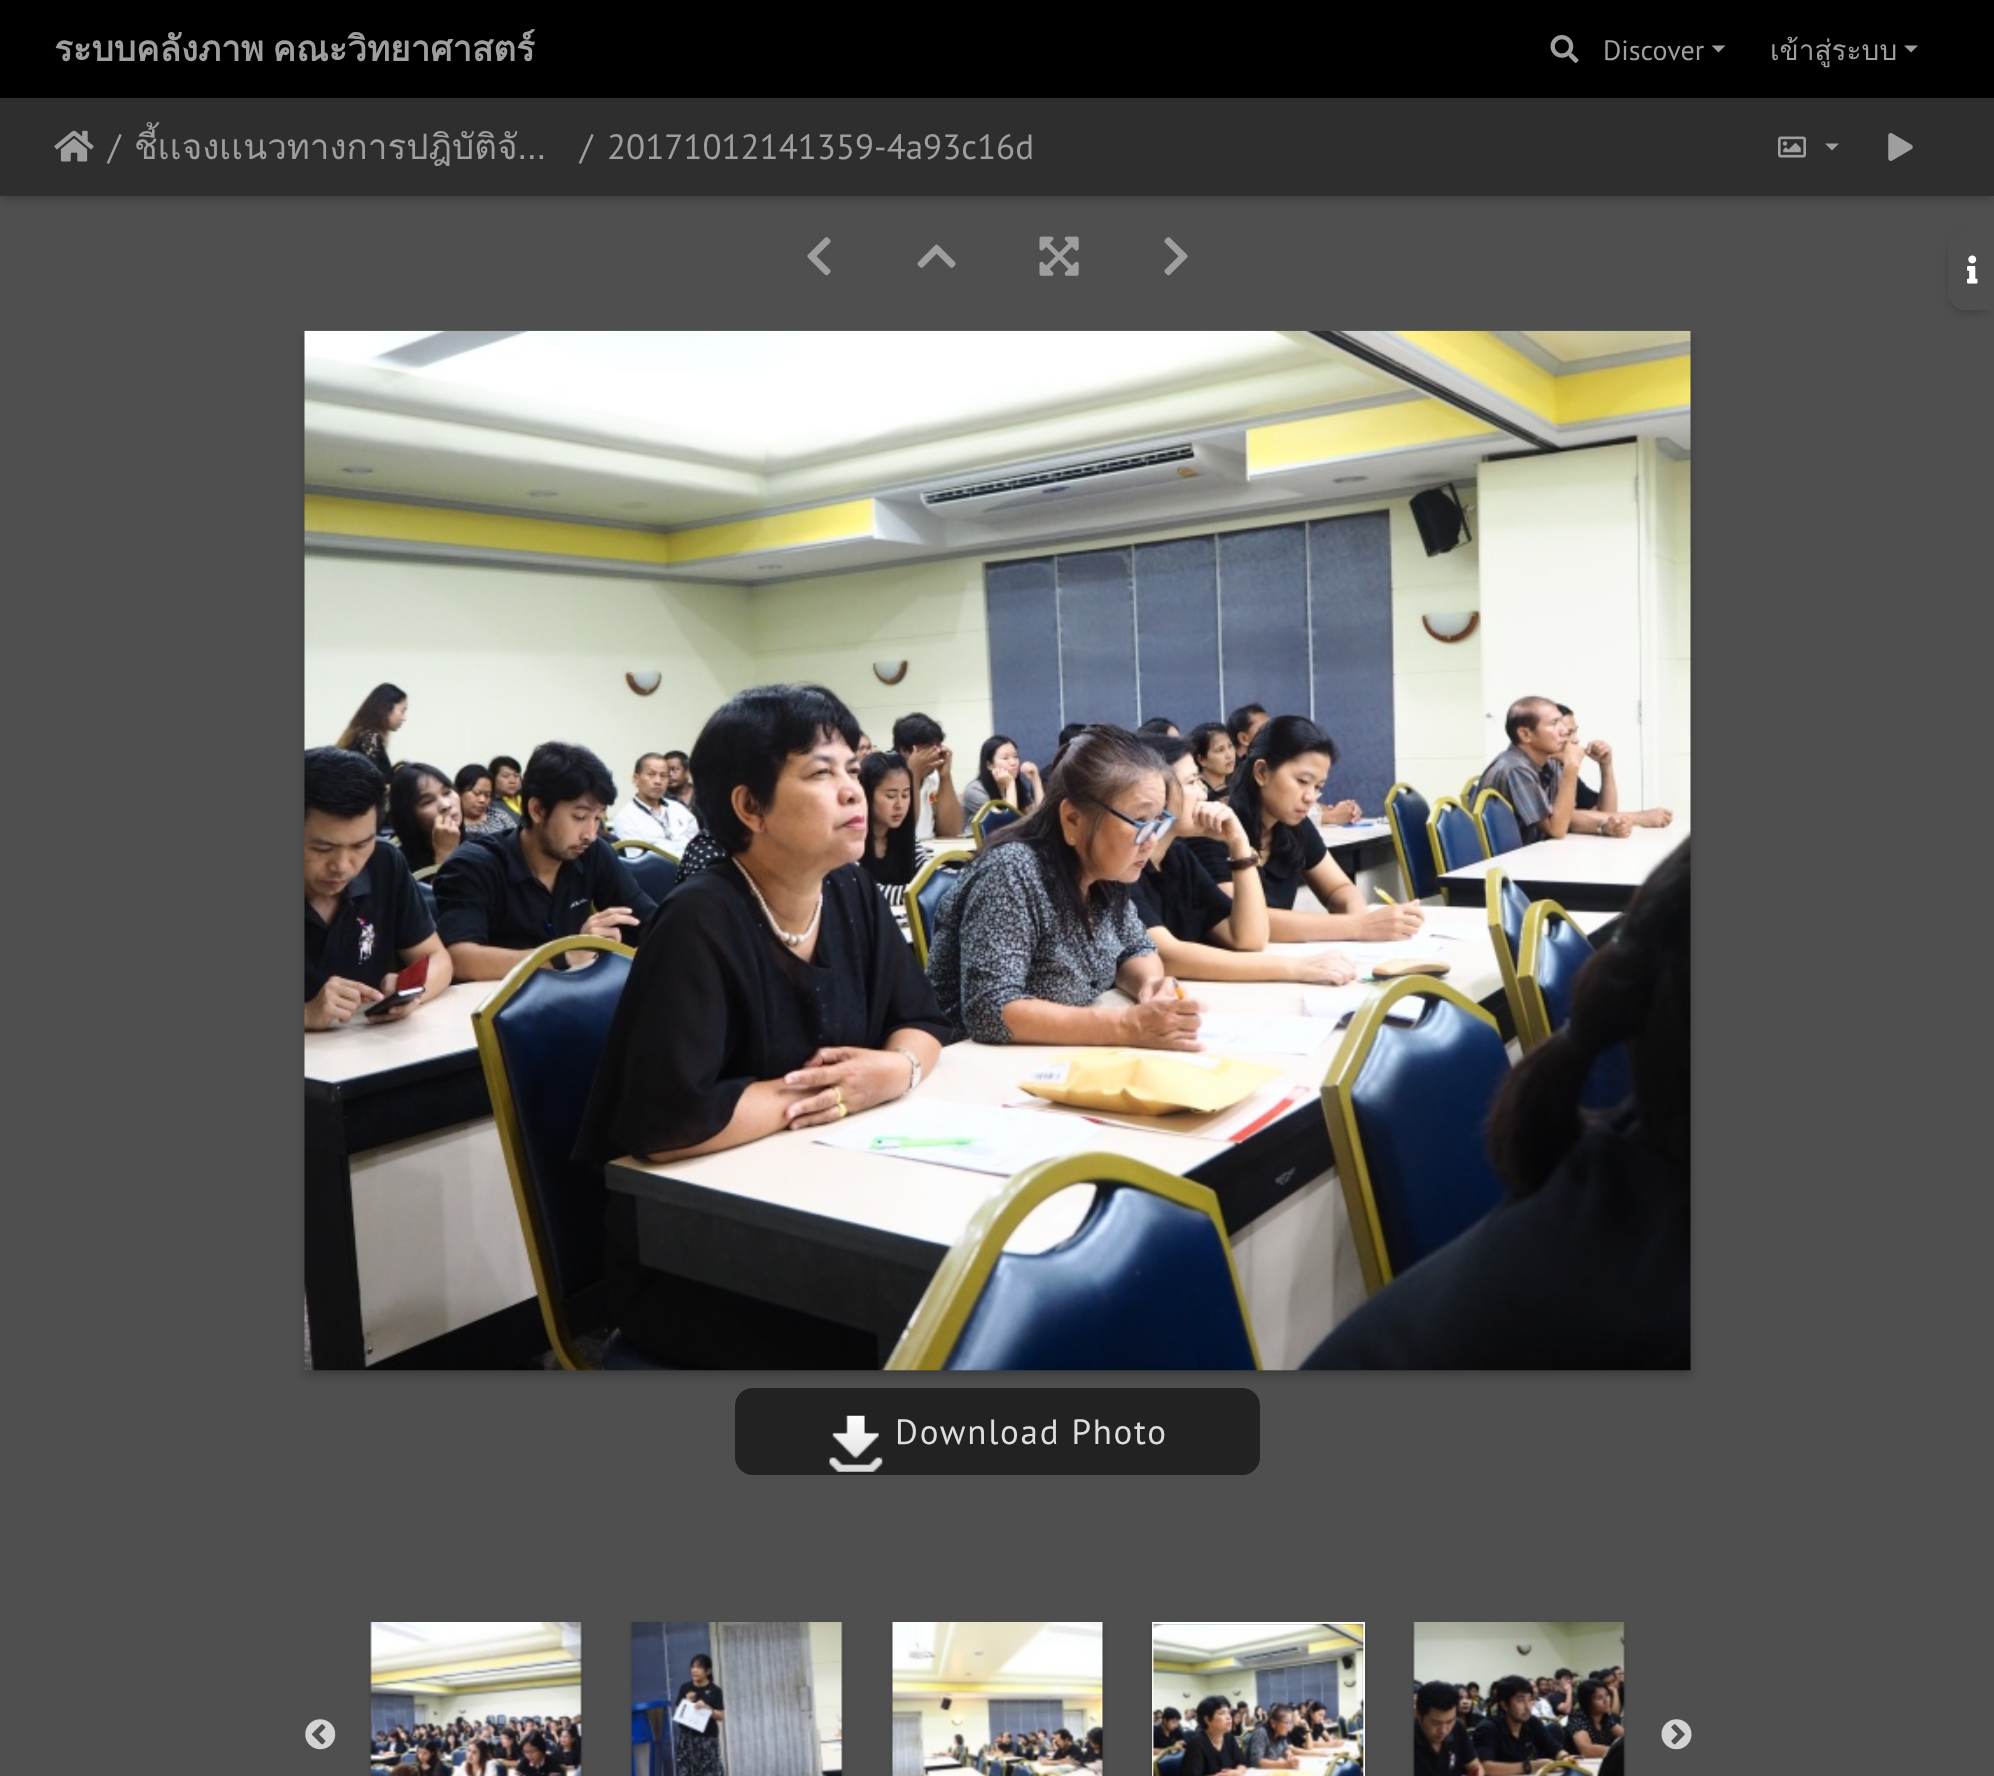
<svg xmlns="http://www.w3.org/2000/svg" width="1994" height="1776">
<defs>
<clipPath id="clip1"><rect x="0" y="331" width="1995" height="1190"/></clipPath>
</defs>
<rect width="100%" height="100%" fill="#4f4f4f"/>
<rect x="2" y="105" width="1991" height="95" fill="#00000033" filter="blur(4.5px)"/>
<rect width="1994" height="98" fill="#000"/>
<text x="54" y="61" word-spacing="-3" style="font-family:Loma;font-size:35px;font-weight:bold;fill:#9e9e9e">ระบบคลังภาพ คณะวิทยาศาสตร์</text>
<image x="1550" y="35" width="29" height="28" href="media/1.png"/>
<text x="1603" y="60" style="font-family:PT Sans;font-size:28px;fill:#9e9e9e">Discover</text>
<path d="M1711.5 45.5h14l-7 7z" fill="#9e9e9e"/>
<text x="1770" y="60" style="font-family:Loma;font-size:28px;fill:#9e9e9e">เข้าสู่ระบบ</text>
<path d="M1904 45.5h14l-7 7z" fill="#9e9e9e"/>
<rect y="98" width="1994" height="98" fill="#2e2e2e"/>
<image x="54" y="130" width="40" height="32" href="media/2.png"/>
<text x="108" y="159" style="font-family:PT Sans;font-size:35px;fill:#9e9e9e">/</text>
<text x="134" y="159" style="font-family:Loma;font-size:35px;fill:#9e9e9e">ชี้เเจงเเนวทางการปฎิบัติจั…</text>
<text x="580" y="159" style="font-family:PT Sans;font-size:35px;fill:#9e9e9e">/</text>
<text x="607" y="159" style="font-family:PT Sans;font-size:35px;fill:#9e9e9e">20171012141359-4a93c16d</text>
<image x="1778" y="136" width="28" height="22" href="media/3.png"/>
<path d="M1825 143.5h14l-7 7z" fill="#9e9e9e"/>
<image x="1888" y="133" width="25" height="28" href="media/4.png"/>
<image x="807" y="237" width="24" height="39" href="media/5.png"/>
<image x="917" y="244" width="39" height="24" href="media/6.png"/>
<image x="1039" y="236" width="40" height="40" href="media/7.png"/>
<image x="1164" y="237" width="24" height="39" href="media/8.png"/>
<rect x="1950" y="236" width="43" height="77" rx="16" fill="#00000033" filter="blur(4.5px)"/>
<path d="M1966 229h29v81h-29c-10 0-18-8-18-18v-45c0-10 8-18 18-18z" fill="#4f4f4f"/>
<path d="M1965 229h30v81h-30c-9 0-17-8-17-18v-45c0-10 8-18 17-18zm0 2h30v77h-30c-8 0-15-7-15-16v-45c0-9 7-16 15-16z" fill="#4f4f4f" fill-rule="evenodd"/>
<image x="1967" y="255" width="11" height="29" href="media/9.png"/>
<rect x="735" y="1388" width="525" height="87" rx="18" fill="#222"/>
<g clip-path="url(#clip1)">
<rect x="305" y="336" width="1386" height="1040" fill="#0000003b" filter="blur(5px)"/>
</g>
<image x="304" y="330" width="1387" height="1041" href="media/10.png"/>
<image x="829" y="1415" width="54" height="57" href="media/11.png"/>
<text x="895" y="1444" style="font-family:PT Sans;font-size:35px;letter-spacing:1.75px;fill:#ddd">Download Photo</text>
<image x="305" y="1719" width="31" height="31" href="media/12.png"/>
<rect x="371" y="1624" width="210" height="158" fill="#0000003d" filter="blur(2px)"/>
<image x="370" y="1622" width="212" height="154" href="media/13.png"/>
<rect x="632" y="1624" width="210" height="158" fill="#0000003d" filter="blur(2px)"/>
<image x="631" y="1622" width="212" height="154" href="media/14.png"/>
<rect x="893" y="1624" width="210" height="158" fill="#0000003d" filter="blur(2px)"/>
<image x="892" y="1622" width="211" height="154" href="media/15.png"/>
<rect x="1152" y="1624" width="213" height="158" fill="#0000003d" filter="blur(2px)"/>
<rect x="1153" y="1623" width="211" height="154" fill="none" stroke="#fff" stroke-width="2"/>
<image x="1152" y="1623" width="212" height="153" href="media/16.png"/>
<rect x="1414" y="1624" width="210" height="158" fill="#0000003d" filter="blur(2px)"/>
<image x="1413" y="1622" width="212" height="154" href="media/17.png"/>
<image x="1661" y="1719" width="31" height="31" href="media/18.png"/>
</svg>
